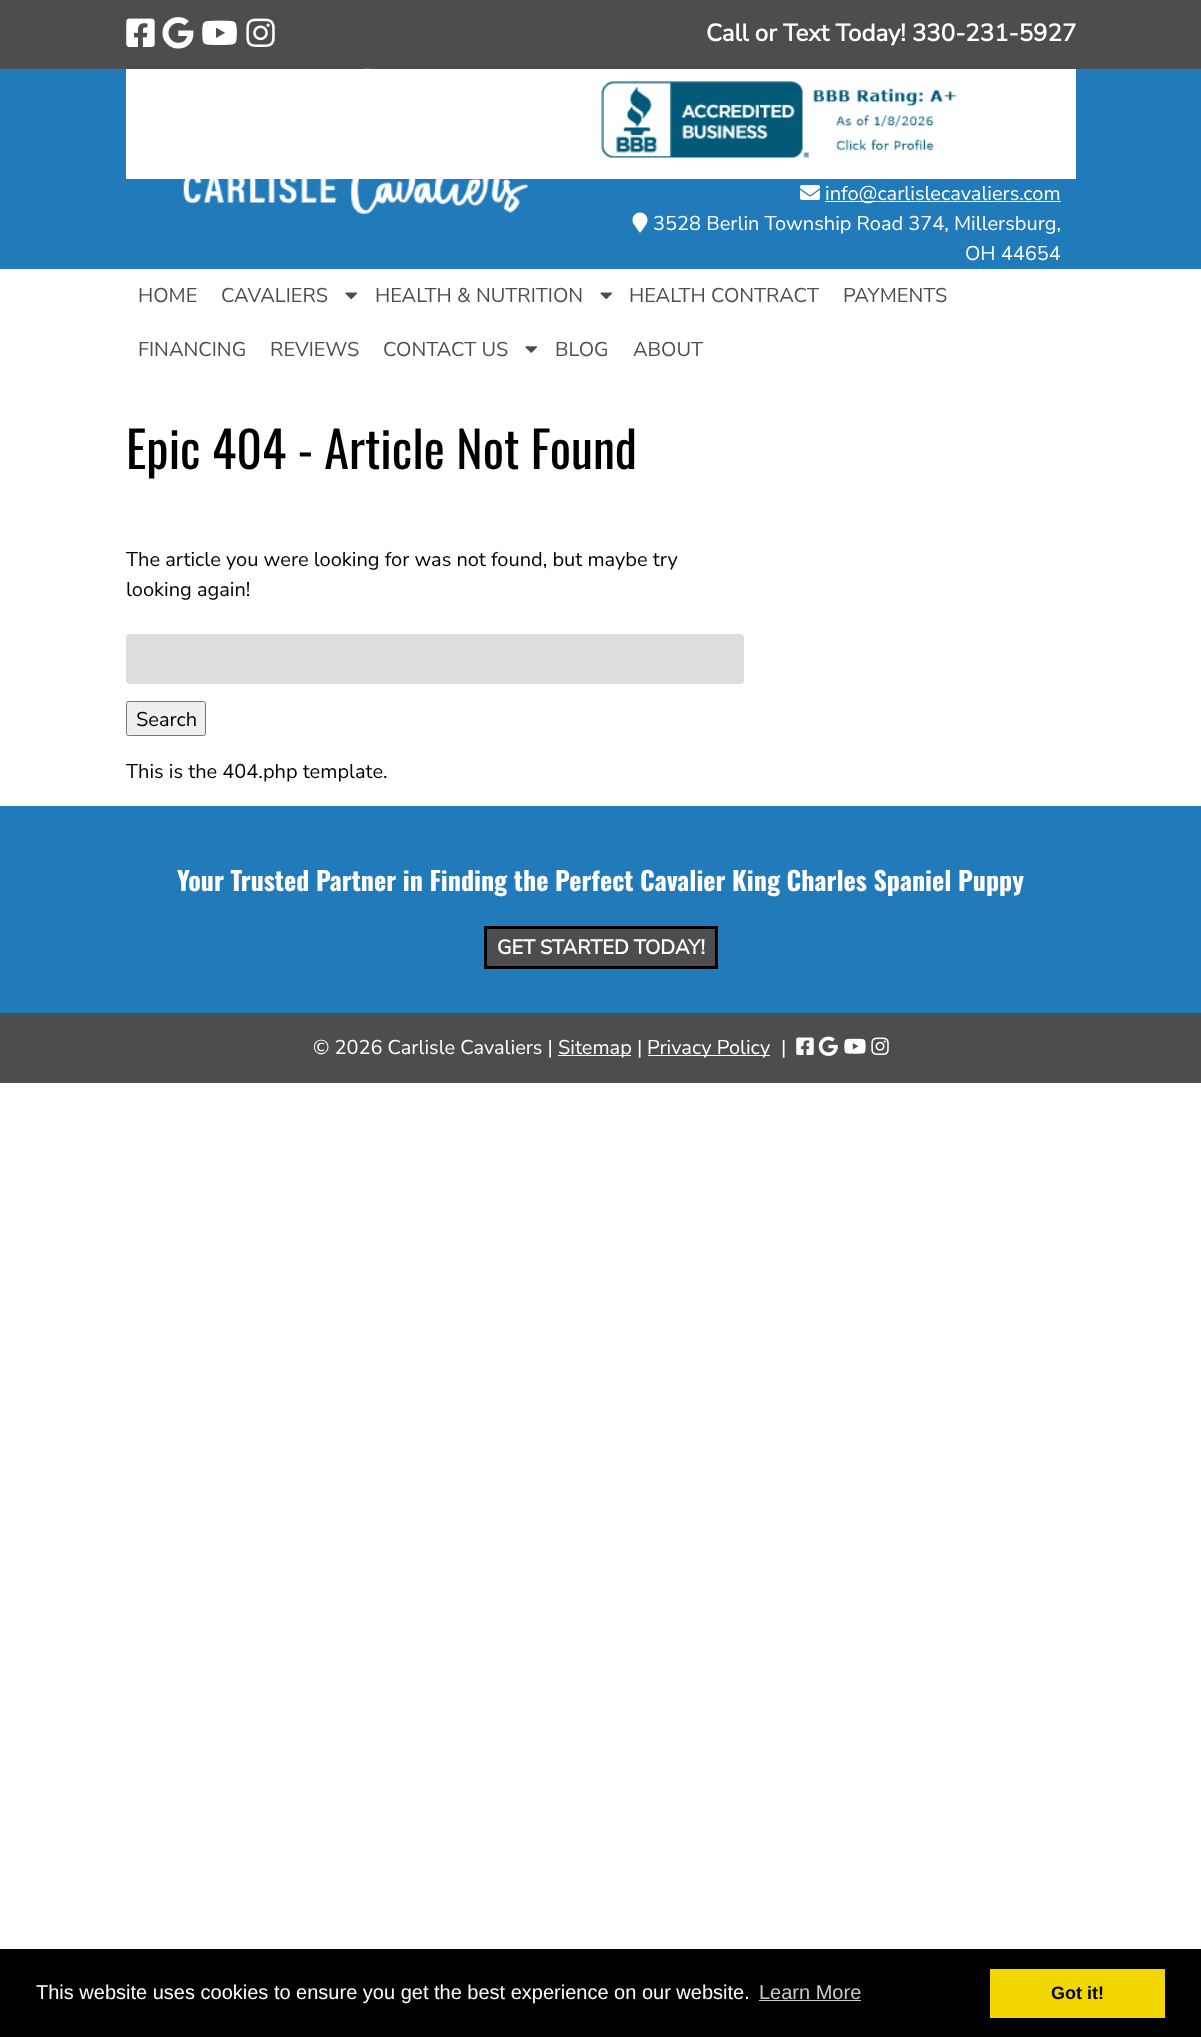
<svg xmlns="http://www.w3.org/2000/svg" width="1201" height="2037">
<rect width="100%" height="100%" fill="#fff"/>
<rect width="1201" height="69" fill="#4c4d4e"/>
<image x="126" y="18" width="29" height="29" href="media/1.png"/>
<image x="162" y="17" width="32" height="32" href="media/2.png"/>
<image x="202" y="20" width="35" height="25" href="media/3.png"/>
<image x="246" y="18" width="29" height="29" href="media/4.png"/>
<text x="706" y="41" style="font-family:Nunito Sans;font-size:24px;font-weight:bold;fill:#fff">Call or Text Today! 330-231-5927</text>
<rect y="69" width="1201" height="200" fill="#217aba"/>
<rect x="126" y="69" width="950" height="110" fill="#fff"/>
<image x="183" y="68" width="346" height="146" href="media/5.png"/>
<image x="601" y="81" width="356" height="77" href="media/6.png"/>
<image x="800" y="185" width="20" height="15" href="media/7.png"/>
<rect x="825" y="201" width="236" height="1" fill="#fff"/>
<text x="825" y="200" style="font-family:Nunito Sans;font-size:20px;font-weight:200;fill:#fff">info@carlislecavaliers.com</text>
<image x="632" y="212" width="16" height="21" href="media/8.png"/>
<text x="653" y="230" style="font-family:Nunito Sans;font-size:20px;font-weight:200;fill:#fff">3528 Berlin Township Road 374, Millersburg,</text>
<text x="965" y="260" style="font-family:Nunito Sans;font-size:20px;font-weight:200;fill:#fff">OH 44654</text>
<text x="138" y="302" style="font-family:Nunito Sans;font-size:20px;font-weight:200;fill:#4c4d4e">HOME</text>
<text x="221" y="302" style="font-family:Nunito Sans;font-size:20px;font-weight:200;fill:#4c4d4e">CAVALIERS</text>
<image x="345" y="292" width="12" height="8" href="media/9.png"/>
<text x="375" y="302" style="font-family:Nunito Sans;font-size:20px;font-weight:200;fill:#4c4d4e">HEALTH &amp; NUTRITION</text>
<image x="600" y="292" width="12" height="8" href="media/9.png"/>
<text x="629" y="302" style="font-family:Nunito Sans;font-size:20px;font-weight:200;fill:#4c4d4e">HEALTH CONTRACT</text>
<text x="843" y="302" style="font-family:Nunito Sans;font-size:20px;font-weight:200;fill:#4c4d4e">PAYMENTS</text>
<text x="138" y="356" style="font-family:Nunito Sans;font-size:20px;font-weight:200;fill:#4c4d4e">FINANCING</text>
<text x="270" y="356" style="font-family:Nunito Sans;font-size:20px;font-weight:200;fill:#4c4d4e">REVIEWS</text>
<text x="383" y="356" style="font-family:Nunito Sans;font-size:20px;font-weight:200;fill:#4c4d4e">CONTACT US</text>
<image x="525" y="346" width="12" height="7" href="media/10.png"/>
<text x="555" y="356" style="font-family:Nunito Sans;font-size:20px;font-weight:200;fill:#4c4d4e">BLOG</text>
<text x="633" y="356" style="font-family:Nunito Sans;font-size:20px;font-weight:200;fill:#4c4d4e">ABOUT</text>
<text x="126" y="469" style="font-family:Oswald;font-size:50px;fill:#000">Epic 404 - Article Not Found</text>
<text x="126" y="566" style="font-family:Nunito Sans;font-size:20px;font-weight:200;fill:#000">The article you were looking for was not found, but maybe try</text>
<text x="126" y="596" style="font-family:Nunito Sans;font-size:20px;font-weight:200;fill:#000">looking again!</text>
<rect x="126" y="634" width="618" height="50" rx="4" fill="#ddd"/>
<rect x="126.5" y="701.5" width="79" height="34" rx="2" fill="#efefef" stroke="#767676"/>
<text x="136" y="726" style="font-family:Nunito Sans;font-size:20px;font-weight:200;fill:#000">Search</text>
<text x="126" y="778" style="font-family:Nunito Sans;font-size:20px;font-weight:200;fill:#000">This is the 404.php template.</text>
<rect y="806" width="1201" height="207" fill="#217aba"/>
<text x="177" y="891" style="font-family:Oswald;font-size:26px;font-weight:bold;fill:#fff">Your Trusted Partner in Finding the Perfect Cavalier King Charles Spaniel Puppy</text>
<rect x="485.5" y="927.5" width="231" height="40" fill="#4c4d4e" stroke="#000" stroke-width="3"/>
<text x="497" y="954" style="font-family:Nunito Sans;font-size:20px;font-weight:bold;fill:#fff">GET STARTED TODAY!</text>
<rect y="1013" width="1201" height="70" fill="#4c4d4e"/>
<text x="313" y="1054" style="font-family:Nunito Sans;font-size:20px;font-weight:200;fill:#fff">© 2026 Carlisle Cavaliers |</text>
<rect x="558" y="1055" width="73" height="1" fill="#fff"/>
<text x="558" y="1054" style="font-family:Nunito Sans;font-size:20px;font-weight:200;fill:#fff">Sitemap |</text>
<rect x="648" y="1055" width="122" height="1" fill="#fff"/>
<text x="647" y="1054" style="font-family:Nunito Sans;font-size:20px;font-weight:200;fill:#fff">Privacy Policy</text>
<text x="781" y="1054" style="font-family:Nunito Sans;font-size:20px;font-weight:200;fill:#fff">|</text>
<image x="796" y="1037" width="18" height="18" href="media/11.png"/>
<image x="818" y="1036" width="20" height="20" href="media/12.png"/>
<image x="844" y="1038" width="22" height="16" href="media/13.png"/>
<image x="871" y="1037" width="18" height="18" href="media/14.png"/>
<rect y="1949" width="1201" height="88" fill="#000"/>
<text x="36" y="1999" style="font-family:Liberation Sans;font-size:20px;fill:#fff">This website uses cookies to ensure you get the best experience on our website.</text>
<text x="759" y="1999" style="font-family:Liberation Sans;font-size:20px;fill:#ccc">Learn More</text>
<rect x="759" y="2000" width="102" height="1" fill="#ccc"/>
<rect x="990" y="1969" width="175" height="49" fill="#f1d600"/>
<text x="1051" y="1999" style="font-family:Liberation Sans;font-size:18px;font-weight:bold;fill:#000">Got it!</text>
</svg>
